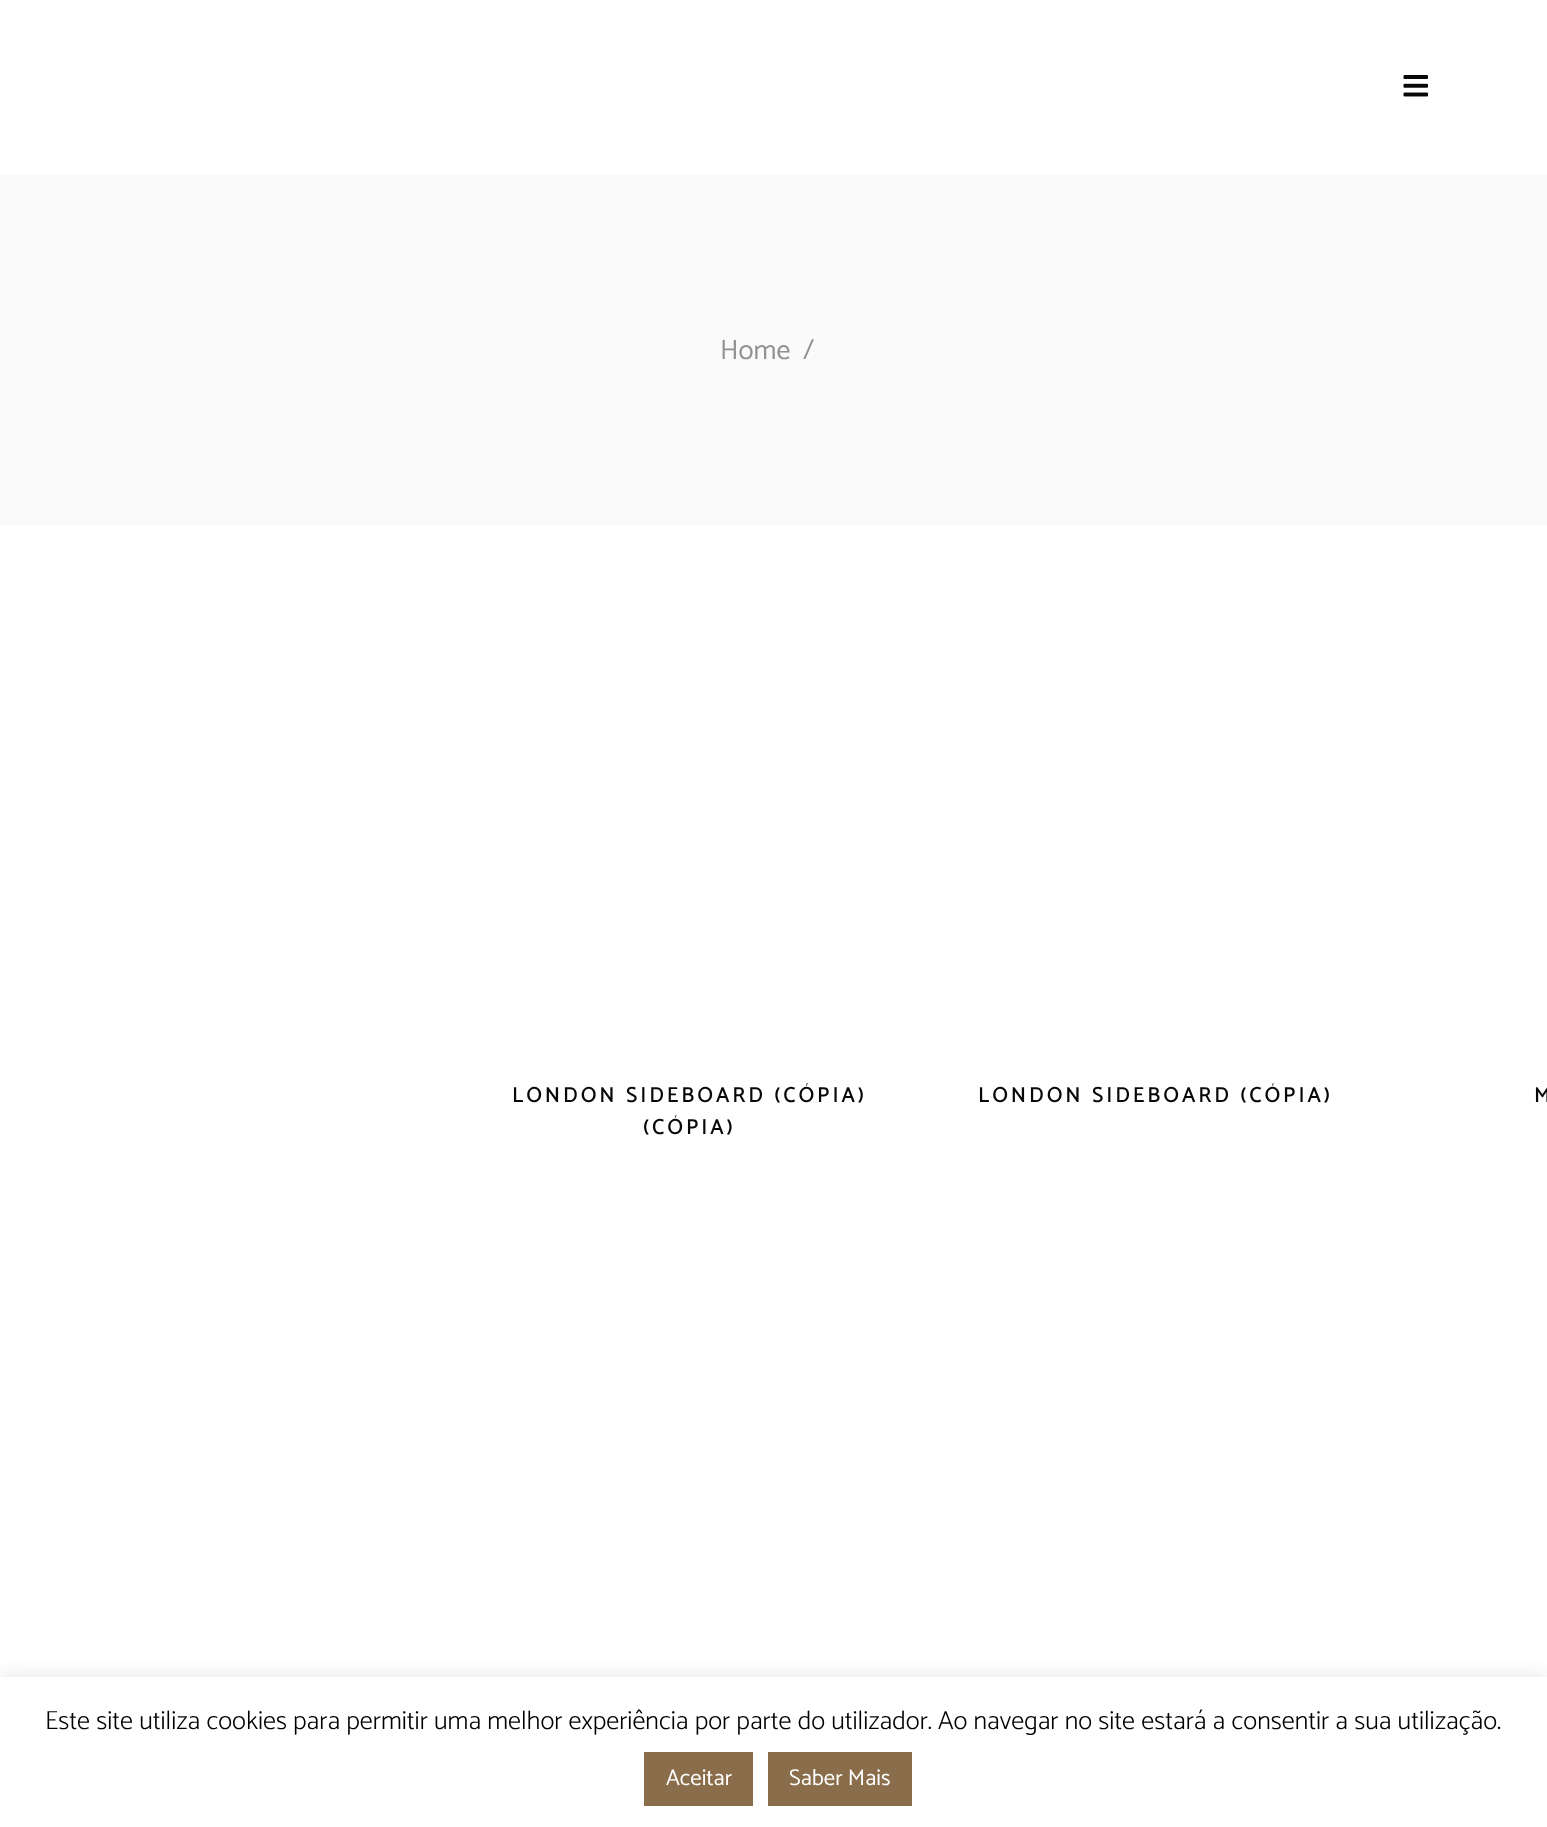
<svg xmlns="http://www.w3.org/2000/svg" width="1547" height="1827">
<defs>
<clipPath id="clip1"><rect x="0" y="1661" width="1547" height="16"/></clipPath>
</defs>
<rect width="100%" height="100%" fill="#fff"/>
<image x="1403" y="75" width="25" height="22" href="media/1.png"/>
<rect y="175" width="1547" height="350" fill="#fafafa"/>
<text x="720" y="359" style="font-family:Catamaran;font-size:28px;fill:#929292">Home</text>
<text x="803" y="359" style="font-family:Catamaran;font-size:28px;fill:#929292">/</text>
<text x="512" y="1102" style="font-family:Catamaran;font-size:21px;font-weight:bold;letter-spacing:3.5px;fill:#080808">LONDON SIDEBOARD (CÓPIA)</text>
<text x="643" y="1134" style="font-family:Catamaran;font-size:21px;font-weight:bold;letter-spacing:3.5px;fill:#080808">(CÓPIA)</text>
<text x="978" y="1102" style="font-family:Catamaran;font-size:21px;font-weight:bold;letter-spacing:3.5px;fill:#080808">LONDON SIDEBOARD (CÓPIA)</text>
<text x="1534" y="1102" style="font-family:Catamaran;font-size:21px;font-weight:bold;letter-spacing:3.5px;fill:#080808">M</text>
<g clip-path="url(#clip1)">
<rect y="1675" width="1547" height="150" fill="#acabab4d" filter="blur(9px)"/>
</g>
<text x="45" y="1729" style="font-family:Catamaran;font-size:26.25px;font-weight:300;fill:#000">Este site utiliza cookies para permitir uma melhor experiência por parte do utilizador. Ao navegar no site estará a consentir a sua utilização.</text>
<rect x="644" y="1752" width="109" height="54" fill="#8a6e4b"/>
<text x="666" y="1785" style="font-family:Catamaran;font-size:22.75px;fill:#fff">Aceitar</text>
<rect x="768" y="1752" width="144" height="54" fill="#8a6e4b"/>
<text x="789" y="1785" style="font-family:Catamaran;font-size:22.75px;fill:#fff">Saber Mais</text>
</svg>
